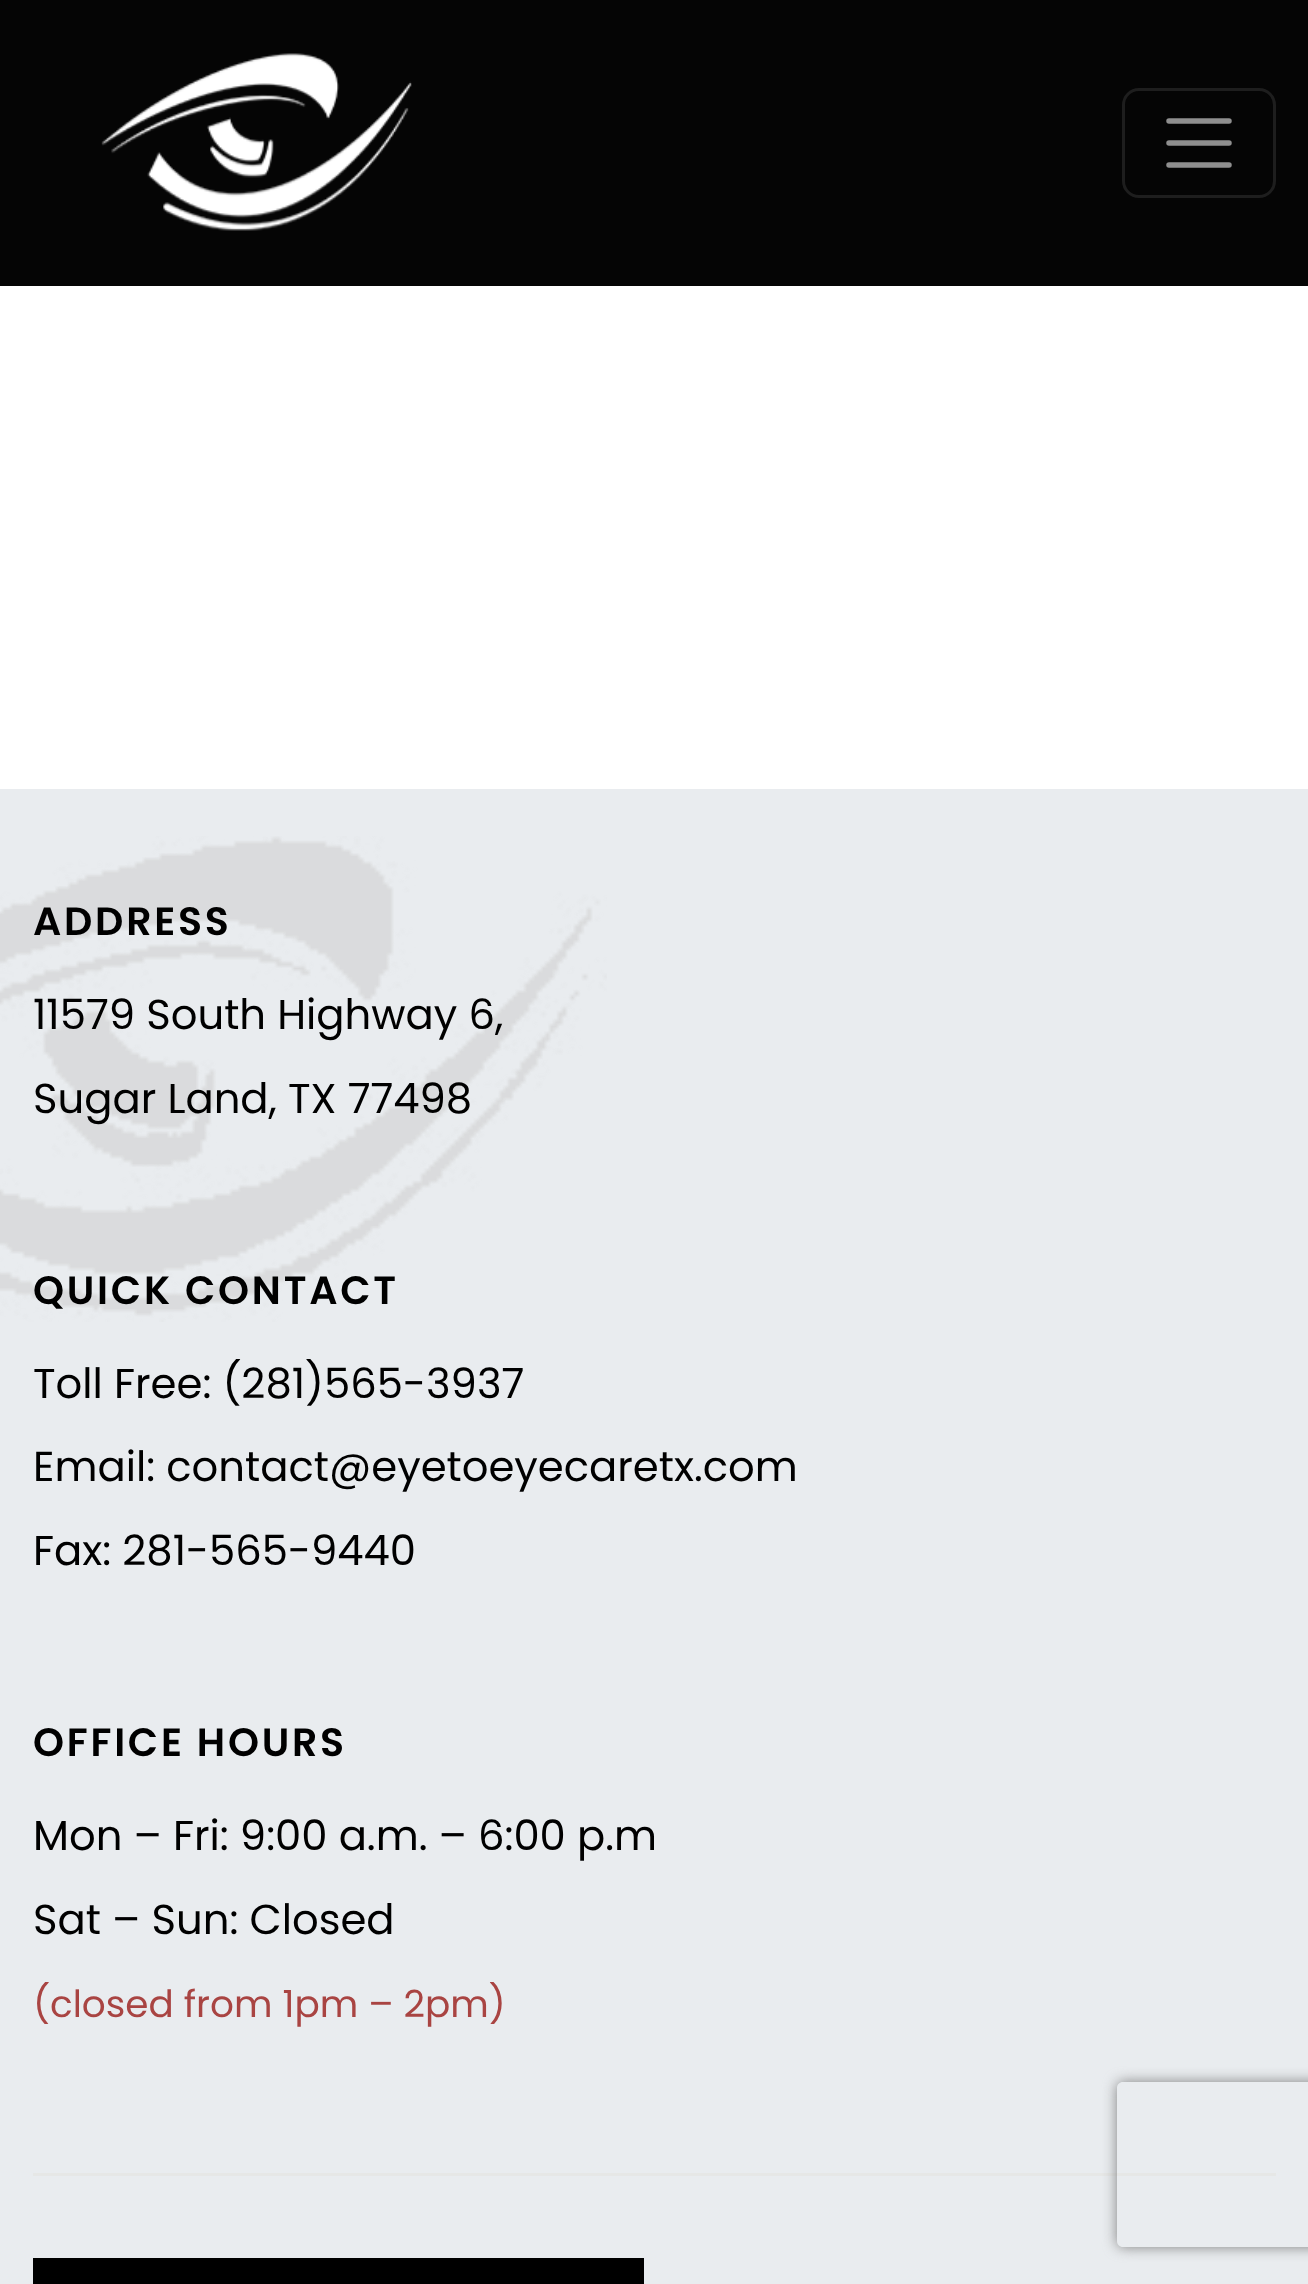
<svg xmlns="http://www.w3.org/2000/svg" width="1308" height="2284">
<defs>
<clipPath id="clip1"><path d="M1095 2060h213v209h-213zm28 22h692c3.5 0 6 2.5 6 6v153c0 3.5-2.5 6-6 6h-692c-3.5 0-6-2.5-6-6v-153c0-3.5 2.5-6 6-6z" clip-rule="evenodd"/></clipPath>
</defs>
<rect width="100%" height="100%" fill="#fff"/>
<rect width="1308" height="286" fill="#000000fa"/>
<image x="101" y="53" width="311" height="178" href="media/1.png"/>
<rect x="1123.5" y="89.5" width="151" height="107" rx="15.5" fill="none" stroke="#1e1e1e" stroke-width="3"/>
<path d="M1169 121h60m-60 22h60m-60 22h60" fill="none" stroke="#8f8f8f" stroke-width="5.5" stroke-linecap="round"/>
<rect y="789" width="1308" height="1495" fill="#e9ecef"/>
<image x="0" y="836" width="607" height="486" href="media/2.png"/>
<text x="33" y="935" style="font-family:Poppins;font-size:39.5px;font-weight:600;letter-spacing:2.75px;fill:#000">ADDRESS</text>
<text x="33" y="1029" style="font-family:Poppins;font-size:41.75px;fill:#000">11579 South Highway 6,</text>
<text x="33" y="1113" style="font-family:Poppins;font-size:41.75px;fill:#000">Sugar Land, TX 77498</text>
<text x="33" y="1304" style="font-family:Poppins;font-size:39.5px;font-weight:600;letter-spacing:2.75px;fill:#000">QUICK CONTACT</text>
<text x="33" y="1398" style="font-family:Poppins;font-size:41.75px;fill:#000">Toll Free: (281)565-3937</text>
<text x="33" y="1481" style="font-family:Poppins;font-size:41.75px;fill:#000">Email: contact@eyetoeyecaretx.com</text>
<text x="33" y="1565" style="font-family:Poppins;font-size:41.75px;fill:#000">Fax: 281-565-9440</text>
<text x="33" y="1756" style="font-family:Poppins;font-size:39.5px;font-weight:600;letter-spacing:2.75px;fill:#000">OFFICE HOURS</text>
<text x="33" y="1850" style="font-family:Poppins;font-size:41.75px;fill:#000">Mon – Fri: 9:00 a.m. – 6:00 p.m</text>
<text x="33" y="1934" style="font-family:Poppins;font-size:41.75px;fill:#000">Sat – Sun: Closed</text>
<text x="33" y="2017" style="font-family:Poppins;font-size:37.4px;fill:#a94442">(closed from 1pm – 2pm)</text>
<rect x="33" y="2173" width="1243" height="3" fill="#e6e7e6"/>
<rect x="33" y="2258" width="611" height="26" fill="#000"/>
<g clip-path="url(#clip1)">
<rect x="1117" y="2082" width="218" height="165" rx="6" fill="#808080" filter="blur(7px)"/>
</g>
</svg>
